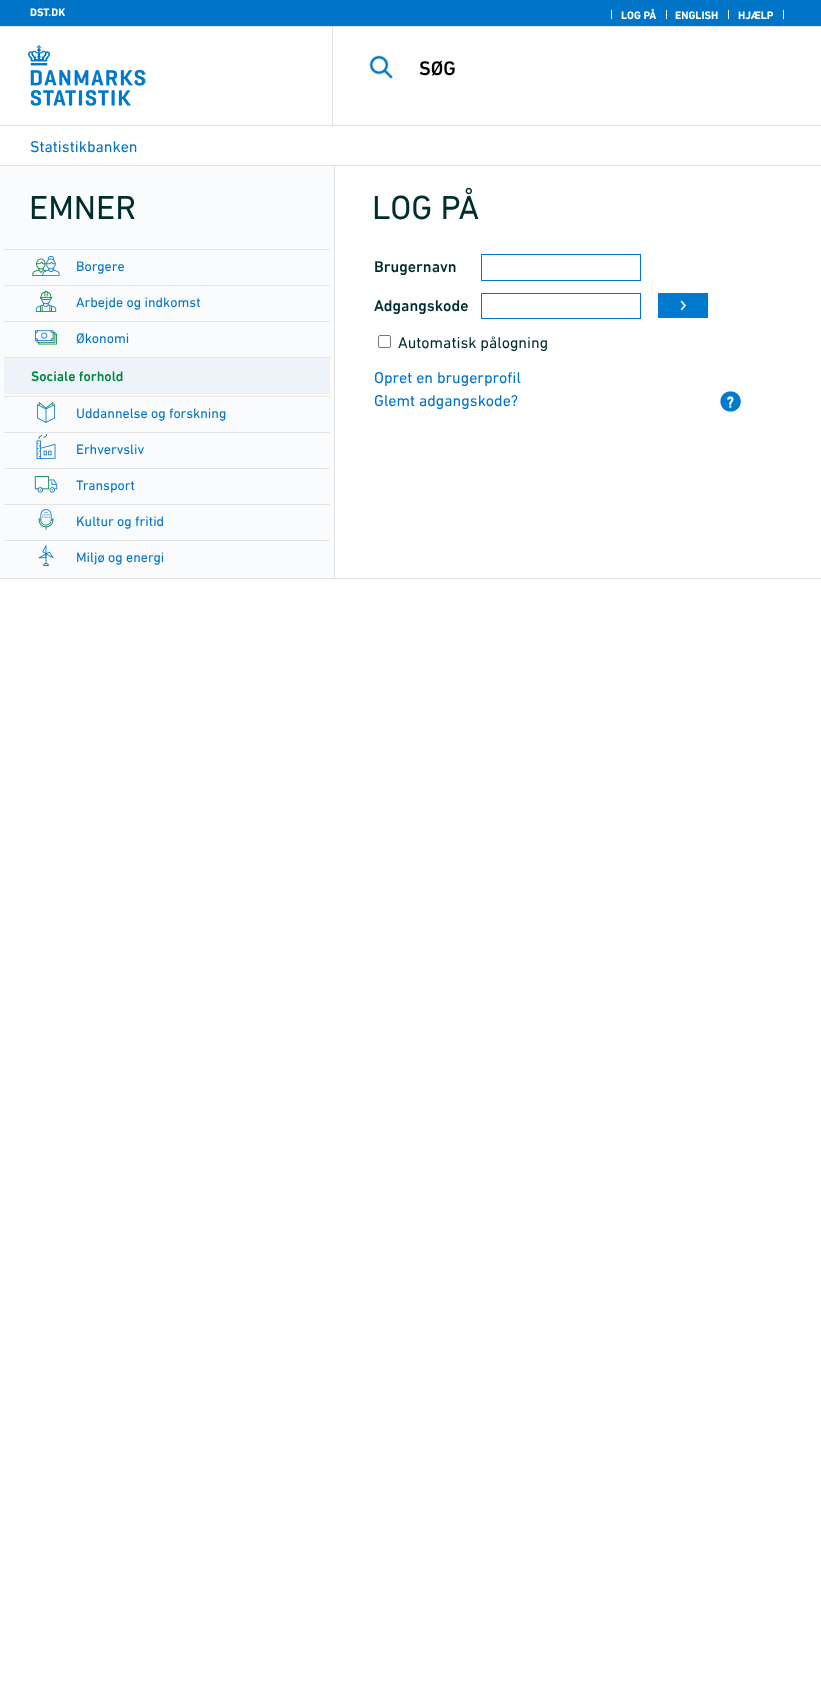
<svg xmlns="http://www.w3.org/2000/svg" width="821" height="1687">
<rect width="100%" height="100%" fill="#fff"/>
<rect width="821" height="26" fill="#0074c6"/>
<rect y="26" width="821" height="1" fill="#e4e4e4"/>
<text x="30" y="16" style="font-family:DIN Next;font-size:11px;font-weight:bold;fill:#fff">DST.DK</text>
<image x="28" y="27" width="305" height="98" href="media/1.png"/>
<rect y="125" width="821" height="1" fill="#e4e4e4"/>
<rect x="611" y="10" width="1" height="9" fill="#fff"/>
<text x="621" y="19" style="font-family:DIN Next;font-size:11px;font-weight:bold;fill:#fff">LOG PÅ</text>
<rect x="666" y="10" width="1" height="9" fill="#fff"/>
<text x="675" y="19" style="font-family:DIN Next;font-size:11px;font-weight:bold;fill:#fff">ENGLISH</text>
<rect x="728" y="10" width="1" height="9" fill="#fff"/>
<text x="738" y="19" style="font-family:DIN Next;font-size:11px;font-weight:bold;fill:#fff">HJÆLP</text>
<rect x="783" y="10" width="1" height="9" fill="#fff"/>
<image x="369" y="55" width="24" height="24" href="media/2.png"/>
<text x="419" y="75" style="font-family:DIN Next;font-size:20px;font-weight:500;fill:#000">SØG</text>
<rect y="165" width="821" height="1" fill="#e4e4e4"/>
<text x="30" y="152" style="font-family:DIN Next;font-size:16px;fill:#0074c6">Statistikbanken</text>
<rect y="578" width="821" height="1" fill="#e4e4e4"/>
<rect y="166" width="334" height="412" fill="#f9fbfd"/>
<rect x="334" y="166" width="1" height="413" fill="#e4e4e4"/>
<text x="29" y="219" style="font-family:DIN Next;font-size:34px;fill:#002e2e">EMNER</text>
<rect x="4" y="249" width="326" height="1" fill="#e4e4e4"/>
<image x="32" y="255" width="28" height="21" href="media/3.png"/>
<text x="76" y="271" style="font-family:DIN Next;font-size:14px;fill:#0074c6">Borgere</text>
<rect x="4" y="285" width="326" height="1" fill="#e4e4e4"/>
<image x="35" y="290" width="22" height="22" href="media/4.png"/>
<text x="76" y="307" style="font-family:DIN Next;font-size:14px;fill:#0074c6">Arbejde og indkomst</text>
<rect x="4" y="321" width="326" height="1" fill="#e4e4e4"/>
<image x="34" y="330" width="24" height="15" href="media/5.png"/>
<text x="76" y="343" style="font-family:DIN Next;font-size:14px;fill:#0074c6">Økonomi</text>
<rect x="4" y="358" width="326" height="36" fill="#eef3fa"/>
<rect x="4" y="357" width="326" height="1" fill="#e4e4e4"/>
<text x="31" y="381" style="font-family:DIN Next;font-size:14px;font-weight:500;fill:#00863b">Sociale forhold</text>
<rect x="4" y="396" width="326" height="1" fill="#e4e4e4"/>
<image x="36" y="402" width="20" height="21" href="media/6.png"/>
<text x="76" y="418" style="font-family:DIN Next;font-size:14px;fill:#0074c6">Uddannelse og forskning</text>
<rect x="4" y="432" width="326" height="1" fill="#e4e4e4"/>
<image x="36" y="434" width="20" height="25" href="media/7.png"/>
<text x="76" y="454" style="font-family:DIN Next;font-size:14px;fill:#0074c6">Erhvervsliv</text>
<rect x="4" y="468" width="326" height="1" fill="#e4e4e4"/>
<image x="34" y="476" width="24" height="17" href="media/8.png"/>
<text x="76" y="490" style="font-family:DIN Next;font-size:14px;fill:#0074c6">Transport</text>
<rect x="4" y="504" width="326" height="1" fill="#e4e4e4"/>
<image x="38" y="509" width="16" height="21" href="media/9.png"/>
<text x="76" y="526" style="font-family:DIN Next;font-size:14px;fill:#0074c6">Kultur og fritid</text>
<rect x="4" y="540" width="326" height="1" fill="#e4e4e4"/>
<image x="38" y="545" width="16" height="21" href="media/10.png"/>
<text x="76" y="562" style="font-family:DIN Next;font-size:14px;fill:#0074c6">Miljø og energi</text>
<text x="372" y="219" style="font-family:DIN Next;font-size:34px;fill:#002e2e">LOG PÅ</text>
<text x="374" y="272" style="font-family:DIN Next;font-size:16px;font-weight:500;fill:#002e2e">Brugernavn</text>
<rect x="481.5" y="254.5" width="159" height="26" fill="none" stroke="#0074c6"/>
<text x="374" y="311" style="font-family:DIN Next;font-size:16px;font-weight:500;fill:#002e2e">Adgangskode</text>
<rect x="481.5" y="293.5" width="159" height="25" fill="none" stroke="#0074c6"/>
<image x="658" y="293" width="50" height="25" href="media/11.png"/>
<rect x="378.5" y="335.5" width="12" height="12" rx="1.5" fill="none" stroke="#767676"/>
<text x="398" y="348" style="font-family:DIN Next;font-size:16px;fill:#002e2e">Automatisk pålogning</text>
<text x="374" y="383" style="font-family:DIN Next;font-size:16px;fill:#0074c6">Opret en brugerprofil</text>
<text x="374" y="406" style="font-family:DIN Next;font-size:16px;fill:#0074c6">Glemt adgangskode?</text>
<image x="720" y="391" width="21" height="21" href="media/12.png"/>
</svg>
